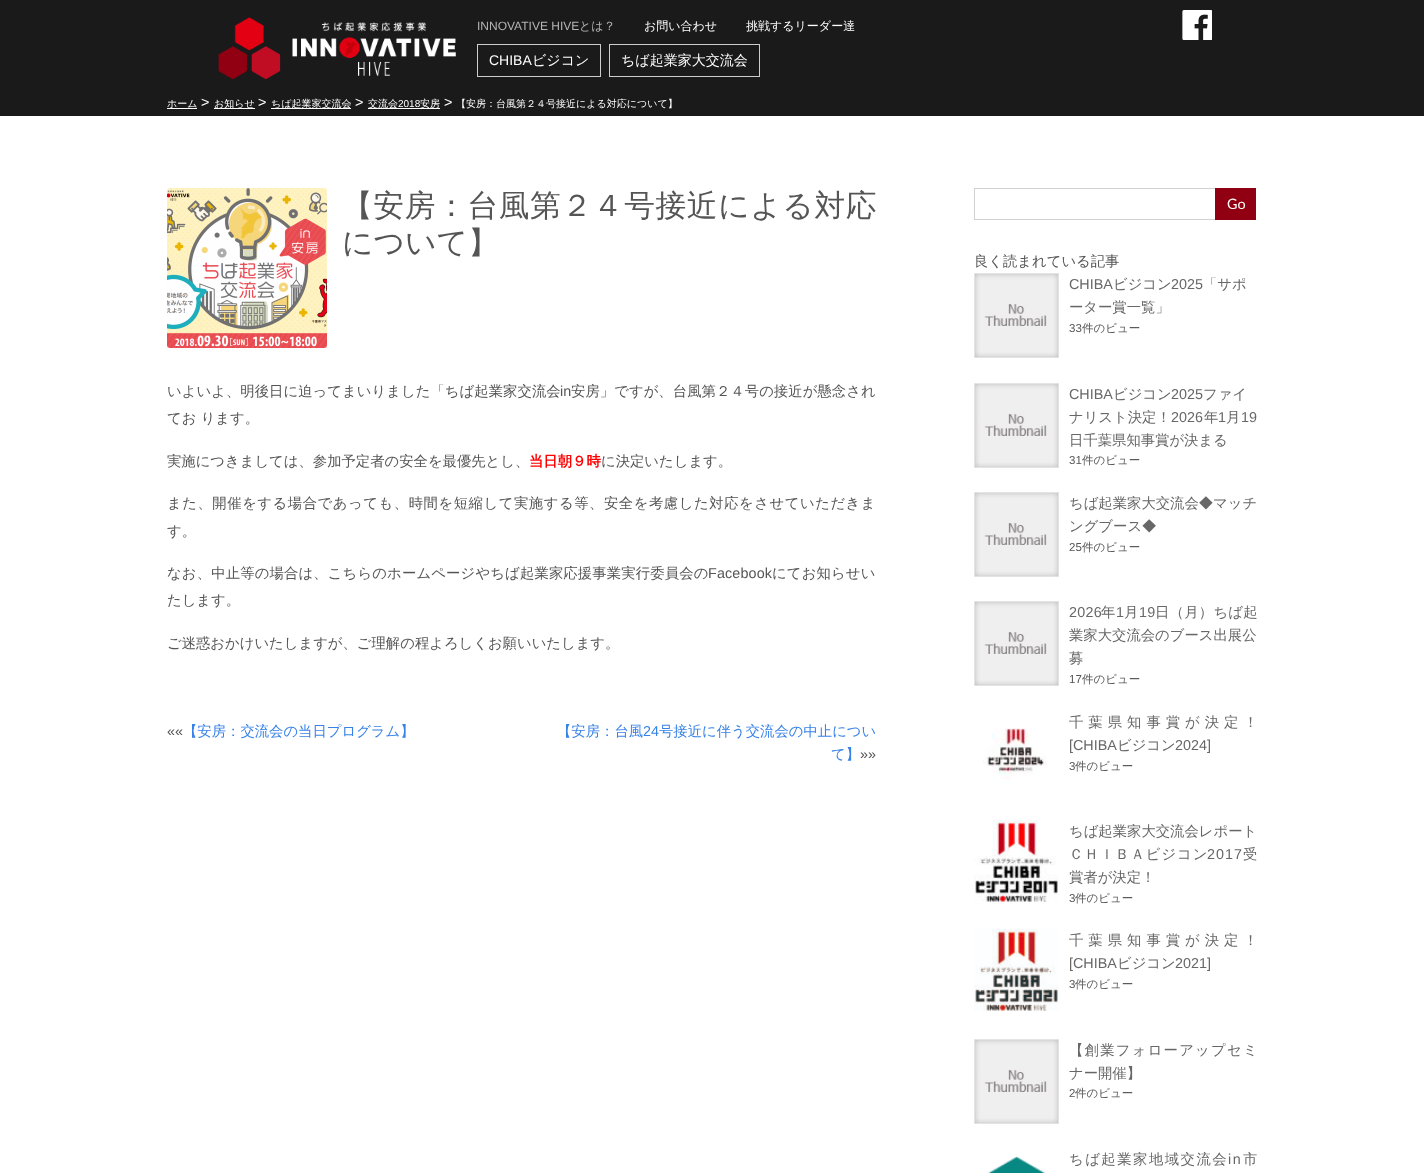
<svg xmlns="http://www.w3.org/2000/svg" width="1424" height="1173">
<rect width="100%" height="100%" fill="#fff"/>
<rect width="1424" height="116" fill="#1a1a1a"/>
<image x="218" y="17" width="238" height="63" href="media/1.png"/>
<text x="477" y="30" style="font-family:Liberation Sans;font-size:12px;fill:#b5b4b4">INNOVATIVE HIVE</text>
<text x="579" y="30" style="font-family:WenQuanYi Zen Hei;font-size:12px;font-weight:500;fill:#b5b4b4">とは？</text>
<text x="644" y="30" style="font-family:WenQuanYi Zen Hei;font-size:12px;font-weight:500;fill:#fff">お問い合わせ</text>
<text x="746" y="30" style="font-family:WenQuanYi Zen Hei;font-size:12px;font-weight:500;fill:#fff">挑戦するリーダー達</text>
<rect x="477.5" y="44.5" width="123" height="32" fill="none" stroke="#cdcdcd"/>
<text x="489" y="65" style="font-family:Liberation Sans;font-size:14px;fill:#fff">CHIBA</text>
<text x="532" y="65" style="font-family:WenQuanYi Zen Hei;font-size:14px;font-weight:500;fill:#fff">ビジコン</text>
<rect x="609.5" y="44.5" width="150" height="32" fill="none" stroke="#cdcdcd"/>
<text x="621" y="65" style="font-family:WenQuanYi Zen Hei;font-size:14px;font-weight:500;fill:#fff">ちば起業家大交流会</text>
<image x="1182" y="10" width="30" height="30" href="media/2.png"/>
<text x="167" y="107" style="font-family:WenQuanYi Zen Hei;font-size:10px;font-weight:500;fill:#fff">ホーム</text>
<rect x="167" y="108" width="30" height="1" fill="#fff"/>
<text x="201" y="107" style="font-family:Liberation Sans;font-size:14.35px;fill:#fff">&gt;</text>
<rect x="214" y="108" width="41" height="1" fill="#fff"/>
<text x="214" y="107" style="font-family:WenQuanYi Zen Hei;font-size:10px;font-weight:500;fill:#fff">お知らせ</text>
<text x="258" y="107" style="font-family:Liberation Sans;font-size:14.35px;fill:#fff">&gt;</text>
<rect x="271" y="108" width="80" height="1" fill="#fff"/>
<text x="271" y="107" style="font-family:WenQuanYi Zen Hei;font-size:10px;font-weight:500;fill:#fff">ちば起業家交流会</text>
<text x="355" y="107" style="font-family:Liberation Sans;font-size:14.35px;fill:#fff">&gt;</text>
<rect x="368" y="108" width="72" height="1" fill="#fff"/>
<text x="368" y="107" style="font-family:WenQuanYi Zen Hei;font-size:10px;font-weight:500;fill:#fff">交流会</text>
<text x="398" y="107" style="font-family:Liberation Sans;font-size:10px;fill:#fff">2018</text>
<text x="420" y="107" style="font-family:WenQuanYi Zen Hei;font-size:10px;font-weight:500;fill:#fff">安房</text>
<text x="444" y="107" style="font-family:Liberation Sans;font-size:14.35px;fill:#fff">&gt;</text>
<text x="456" y="107" style="font-family:WenQuanYi Zen Hei;font-size:10px;font-weight:500;fill:#fff">【安房：台風第２４号接近による対応について】</text>
<image x="167" y="188" width="160" height="160" href="media/3.png"/>
<text x="342" y="216" style="font-family:WenQuanYi Zen Hei;font-size:30.75px;font-weight:500;letter-spacing:0.6px;fill:#555">【安房：台風第２４号接近による対応</text>
<text x="342" y="253" style="font-family:WenQuanYi Zen Hei;font-size:30.75px;font-weight:500;fill:#555">について】</text>
<text x="167" y="396" style="font-family:WenQuanYi Zen Hei;font-size:14.35px;font-weight:500;letter-spacing:0.05px;fill:#555">いよいよ、明後日に迫ってまいりました「ちば起業家交流会</text>
<text x="560" y="396" style="font-family:Liberation Sans;font-size:14.35px;letter-spacing:0.05px;fill:#555">in</text>
<text x="571" y="396" style="font-family:WenQuanYi Zen Hei;font-size:14.35px;font-weight:500;letter-spacing:0.05px;fill:#555">安房」ですが、台風第２４号の接近が懸念され</text>
<text x="167" y="423" style="font-family:WenQuanYi Zen Hei;font-size:14.35px;font-weight:500;fill:#555">てお ります。</text>
<text x="167" y="466" style="font-family:WenQuanYi Zen Hei;font-size:14.35px;font-weight:500;fill:#555">実施につきましては、参加予定者の安全を最優先とし、</text>
<text x="529" y="466" style="font-family:WenQuanYi Zen Hei;font-size:14.35px;font-weight:bold;fill:#f00">当日朝９時</text>
<text x="601" y="466" style="font-family:WenQuanYi Zen Hei;font-size:14.35px;font-weight:500;fill:#555">に決定いたします。</text>
<text x="167" y="508" style="font-family:WenQuanYi Zen Hei;font-size:14.35px;font-weight:500;letter-spacing:0.55px;fill:#555">また、開催をする場合であっても、時間を短縮して実施する等、安全を考慮した対応をさせていただきま</text>
<text x="167" y="536" style="font-family:WenQuanYi Zen Hei;font-size:14.35px;font-weight:500;fill:#555">す。</text>
<text x="167" y="578" style="font-family:WenQuanYi Zen Hei;font-size:14.35px;font-weight:500;letter-spacing:0.15px;fill:#555">なお、中止等の場合は、こちらのホームページやちば起業家応援事業実行委員会の</text>
<text x="708" y="578" style="font-family:Liberation Sans;font-size:14.35px;letter-spacing:0.15px;fill:#555">Facebook</text>
<text x="772" y="578" style="font-family:WenQuanYi Zen Hei;font-size:14.35px;font-weight:500;letter-spacing:0.15px;fill:#555">にてお知らせい</text>
<text x="167" y="605" style="font-family:WenQuanYi Zen Hei;font-size:14.35px;font-weight:500;fill:#555">たします。</text>
<text x="167" y="648" style="font-family:WenQuanYi Zen Hei;font-size:14.35px;font-weight:500;fill:#555">ご迷惑おかけいたしますが、ご理解の程よろしくお願いいたします。</text>
<text x="167" y="736" style="font-family:Liberation Sans;font-size:14.35px;fill:#555">««</text>
<text x="183" y="736" style="font-family:WenQuanYi Zen Hei;font-size:14.35px;font-weight:500;fill:#3782e7">【安房：交流会の当日プログラム】</text>
<text x="557" y="736" style="font-family:WenQuanYi Zen Hei;font-size:14.35px;font-weight:500;fill:#3782e7">【安房：台風</text>
<text x="643" y="736" style="font-family:Liberation Sans;font-size:14.35px;fill:#3782e7">24</text>
<text x="659" y="736" style="font-family:WenQuanYi Zen Hei;font-size:14.35px;font-weight:500;fill:#3782e7">号接近に伴う交流会の中止につい</text>
<text x="831" y="759" style="font-family:WenQuanYi Zen Hei;font-size:14.35px;font-weight:500;fill:#3782e7">て】</text>
<text x="860" y="759" style="font-family:Liberation Sans;font-size:14.35px;fill:#555">»»</text>
<rect x="974.5" y="188.5" width="241" height="31" fill="none" stroke="#d1d1d1"/>
<rect x="1215" y="188" width="41" height="32" fill="#910012"/>
<text x="1227" y="209" style="font-family:Lato;font-size:14.35px;fill:#fff">Go</text>
<text x="974" y="266" style="font-family:WenQuanYi Zen Hei;font-size:14.35px;font-weight:500;fill:#555">良く読まれている記事</text>
<image x="974" y="273" width="85" height="85" href="media/4.png"/>
<text x="1069" y="289" style="font-family:Liberation Sans;font-size:14.35px;fill:#676767">CHIBA</text>
<text x="1113" y="289" style="font-family:WenQuanYi Zen Hei;font-size:14.35px;font-weight:500;fill:#676767">ビジコン</text>
<text x="1171" y="289" style="font-family:Liberation Sans;font-size:14.35px;fill:#676767">2025</text>
<text x="1203" y="289" style="font-family:WenQuanYi Zen Hei;font-size:14.35px;font-weight:500;fill:#676767">「サポ</text>
<text x="1069" y="312" style="font-family:WenQuanYi Zen Hei;font-size:14.35px;font-weight:500;fill:#676767">ーター賞一覧」</text>
<text x="1069" y="332" style="font-family:Liberation Sans;font-size:11.5px;fill:#555">33</text>
<text x="1082" y="332" style="font-family:WenQuanYi Zen Hei;font-size:11.5px;font-weight:500;fill:#555">件のビュー</text>
<image x="974" y="383" width="85" height="85" href="media/4.png"/>
<text x="1069" y="399" style="font-family:Liberation Sans;font-size:14.35px;fill:#676767">CHIBA</text>
<text x="1113" y="399" style="font-family:WenQuanYi Zen Hei;font-size:14.35px;font-weight:500;fill:#676767">ビジコン</text>
<text x="1171" y="399" style="font-family:Liberation Sans;font-size:14.35px;fill:#676767">2025</text>
<text x="1203" y="399" style="font-family:WenQuanYi Zen Hei;font-size:14.35px;font-weight:500;fill:#676767">ファイ</text>
<text x="1069" y="422" style="font-family:WenQuanYi Zen Hei;font-size:14.35px;font-weight:500;fill:#676767">ナリスト決定！</text>
<text x="1171" y="422" style="font-family:Liberation Sans;font-size:14.35px;fill:#676767">2026</text>
<text x="1204" y="422" style="font-family:WenQuanYi Zen Hei;font-size:14.35px;font-weight:500;fill:#676767">年</text>
<text x="1218" y="422" style="font-family:Liberation Sans;font-size:14.35px;fill:#676767">1</text>
<text x="1226" y="422" style="font-family:WenQuanYi Zen Hei;font-size:14.35px;font-weight:500;fill:#676767">月</text>
<text x="1241" y="422" style="font-family:Liberation Sans;font-size:14.35px;fill:#676767">19</text>
<text x="1069" y="445" style="font-family:WenQuanYi Zen Hei;font-size:14.35px;font-weight:500;fill:#676767">日千葉県知事賞が決まる</text>
<text x="1069" y="464" style="font-family:Liberation Sans;font-size:11.5px;fill:#555">31</text>
<text x="1082" y="464" style="font-family:WenQuanYi Zen Hei;font-size:11.5px;font-weight:500;fill:#555">件のビュー</text>
<image x="974" y="492" width="85" height="85" href="media/4.png"/>
<text x="1069" y="508" style="font-family:WenQuanYi Zen Hei;font-size:14.35px;font-weight:500;fill:#676767">ちば起業家大交流会◆マッチ</text>
<text x="1069" y="531" style="font-family:WenQuanYi Zen Hei;font-size:14.35px;font-weight:500;fill:#676767">ングブース◆</text>
<text x="1069" y="551" style="font-family:Liberation Sans;font-size:11.5px;fill:#555">25</text>
<text x="1082" y="551" style="font-family:WenQuanYi Zen Hei;font-size:11.5px;font-weight:500;fill:#555">件のビュー</text>
<image x="974" y="601" width="85" height="85" href="media/4.png"/>
<text x="1069" y="617" style="font-family:Liberation Sans;font-size:14.35px;letter-spacing:0.25px;fill:#676767">2026</text>
<text x="1101" y="617" style="font-family:WenQuanYi Zen Hei;font-size:14.35px;font-weight:500;letter-spacing:0.25px;fill:#676767">年</text>
<text x="1116" y="617" style="font-family:Liberation Sans;font-size:14.35px;letter-spacing:0.25px;fill:#676767">1</text>
<text x="1124" y="617" style="font-family:WenQuanYi Zen Hei;font-size:14.35px;font-weight:500;letter-spacing:0.25px;fill:#676767">月</text>
<text x="1139" y="617" style="font-family:Liberation Sans;font-size:14.35px;letter-spacing:0.25px;fill:#676767">19</text>
<text x="1155" y="617" style="font-family:WenQuanYi Zen Hei;font-size:14.35px;font-weight:500;letter-spacing:0.25px;fill:#676767">日（月）ちば起</text>
<text x="1069" y="640" style="font-family:WenQuanYi Zen Hei;font-size:14.35px;font-weight:500;fill:#676767">業家大交流会のブース出展公</text>
<text x="1069" y="663" style="font-family:WenQuanYi Zen Hei;font-size:14.35px;font-weight:500;fill:#676767">募</text>
<text x="1069" y="683" style="font-family:Liberation Sans;font-size:11.5px;fill:#555">17</text>
<text x="1082" y="683" style="font-family:WenQuanYi Zen Hei;font-size:11.5px;font-weight:500;fill:#555">件のビュー</text>
<text x="1069" y="727" style="font-family:WenQuanYi Zen Hei;font-size:14.35px;font-weight:500;letter-spacing:5px;fill:#676767">千葉県知事賞が決定！</text>
<image x="983" y="728" width="64" height="55" href="media/5.png"/>
<text x="1069" y="750" style="font-family:Liberation Sans;font-size:14.35px;fill:#676767">[CHIBA</text>
<text x="1117" y="750" style="font-family:WenQuanYi Zen Hei;font-size:14.35px;font-weight:500;fill:#676767">ビジコン</text>
<text x="1175" y="750" style="font-family:Liberation Sans;font-size:14.35px;fill:#676767">2024]</text>
<text x="1069" y="770" style="font-family:Liberation Sans;font-size:11.5px;fill:#555">3</text>
<text x="1075" y="770" style="font-family:WenQuanYi Zen Hei;font-size:11.5px;font-weight:500;fill:#555">件のビュー</text>
<image x="974" y="820" width="84" height="82" href="media/6.png"/>
<text x="1069" y="836" style="font-family:WenQuanYi Zen Hei;font-size:14.35px;font-weight:500;fill:#676767">ちば起業家大交流会レポート</text>
<text x="1069" y="859" style="font-family:WenQuanYi Zen Hei;font-size:14.35px;font-weight:500;letter-spacing:1px;fill:#676767">ＣＨＩＢＡビジコン</text>
<text x="1207" y="859" style="font-family:Liberation Sans;font-size:14.35px;letter-spacing:1px;fill:#676767">2017</text>
<text x="1243" y="859" style="font-family:WenQuanYi Zen Hei;font-size:14.35px;font-weight:500;letter-spacing:1px;fill:#676767">受</text>
<text x="1069" y="882" style="font-family:WenQuanYi Zen Hei;font-size:14.35px;font-weight:500;fill:#676767">賞者が決定！</text>
<text x="1069" y="902" style="font-family:Liberation Sans;font-size:11.5px;fill:#555">3</text>
<text x="1075" y="902" style="font-family:WenQuanYi Zen Hei;font-size:11.5px;font-weight:500;fill:#555">件のビュー</text>
<image x="974" y="929" width="85" height="82" href="media/7.png"/>
<text x="1069" y="945" style="font-family:WenQuanYi Zen Hei;font-size:14.35px;font-weight:500;letter-spacing:5px;fill:#676767">千葉県知事賞が決定！</text>
<text x="1069" y="968" style="font-family:Liberation Sans;font-size:14.35px;fill:#676767">[CHIBA</text>
<text x="1117" y="968" style="font-family:WenQuanYi Zen Hei;font-size:14.35px;font-weight:500;fill:#676767">ビジコン</text>
<text x="1175" y="968" style="font-family:Liberation Sans;font-size:14.35px;fill:#676767">2021]</text>
<text x="1069" y="988" style="font-family:Liberation Sans;font-size:11.5px;fill:#555">3</text>
<text x="1075" y="988" style="font-family:WenQuanYi Zen Hei;font-size:11.5px;font-weight:500;fill:#555">件のビュー</text>
<image x="974" y="1039" width="85" height="85" href="media/4.png"/>
<text x="1069" y="1055" style="font-family:WenQuanYi Zen Hei;font-size:14.35px;font-weight:500;letter-spacing:1.25px;fill:#676767">【創業フォローアップセミ</text>
<text x="1069" y="1078" style="font-family:WenQuanYi Zen Hei;font-size:14.35px;font-weight:500;fill:#676767">ナー開催】</text>
<text x="1069" y="1097" style="font-family:Liberation Sans;font-size:11.5px;fill:#555">2</text>
<text x="1075" y="1097" style="font-family:WenQuanYi Zen Hei;font-size:11.5px;font-weight:500;fill:#555">件のビュー</text>
<image x="987" y="1156" width="59" height="17" href="media/8.png"/>
<text x="1069" y="1164" style="font-family:WenQuanYi Zen Hei;font-size:14.35px;font-weight:500;letter-spacing:1.5px;fill:#676767">ちば起業家地域交流会</text>
<text x="1228" y="1164" style="font-family:Liberation Sans;font-size:14.35px;letter-spacing:1.5px;fill:#676767">in</text>
<text x="1243" y="1164" style="font-family:WenQuanYi Zen Hei;font-size:14.35px;font-weight:500;letter-spacing:1.5px;fill:#676767">市</text>
</svg>
